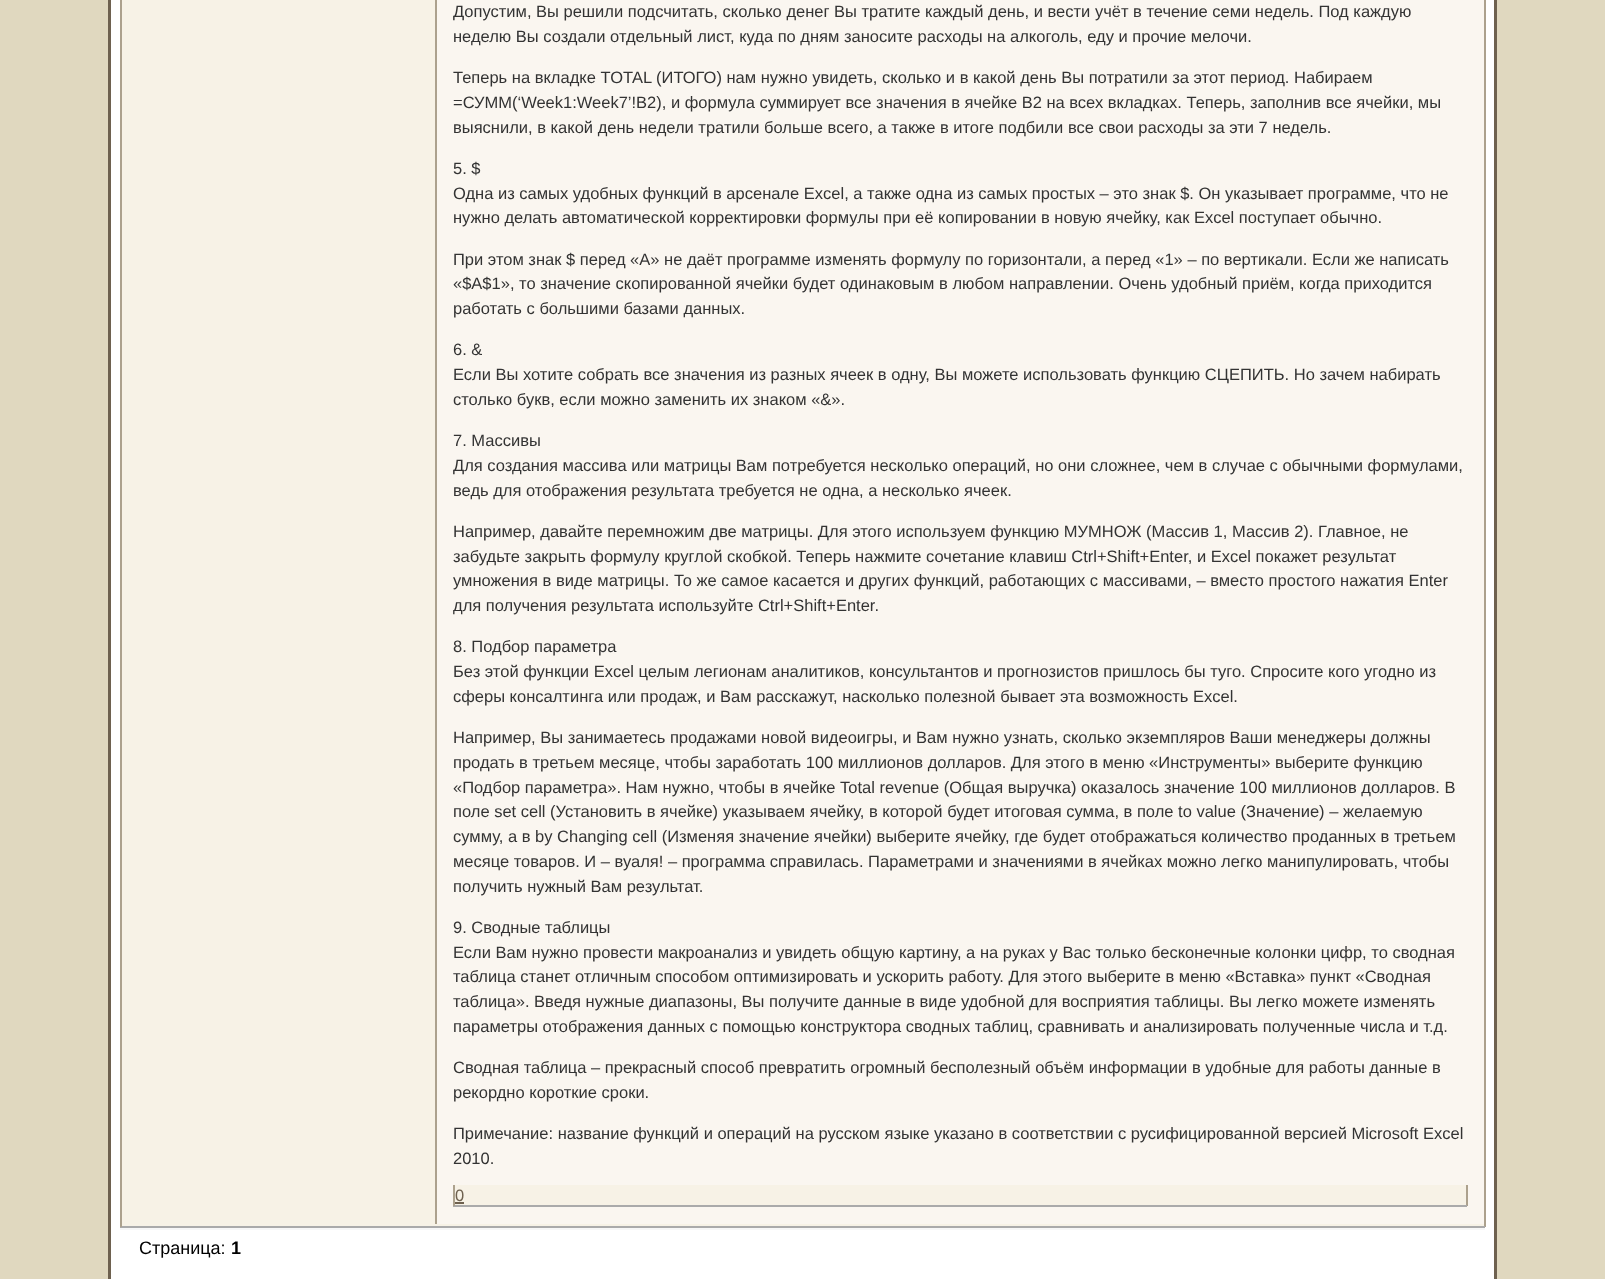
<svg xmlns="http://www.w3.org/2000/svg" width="1605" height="1279">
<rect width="100%" height="100%" fill="#e0d8bf"/>
<rect x="109.5" y="-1.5" width="1386" height="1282" fill="#fff" stroke="#6e614f" stroke-width="3"/>
<rect x="120" y="1228" width="1365" height="2" fill="#f7f7f7"/>
<rect x="122" width="1362" height="1226" fill="#f7f2e6"/>
<rect x="1484" width="2" height="1227" fill="#aca18d"/>
<rect x="120" y="1226" width="1365" height="2" fill="#aaa"/>
<rect x="120" width="2" height="1227" fill="#aca18d"/>
<rect x="437" width="1047" height="1224" fill="#faf6f0"/>
<rect x="435" width="2" height="1224" fill="#aca18d"/>
<text x="453" y="17" style="font-family:Liberation Sans;font-size:16.5px;fill:#333">Допустим, Вы решили подсчитать, сколько денег Вы тратите каждый день, и вести учёт в течение семи недель. Под каждую</text>
<text x="453" y="42" style="font-family:Liberation Sans;font-size:16.5px;fill:#333">неделю Вы создали отдельный лист, куда по дням заносите расходы на алкоголь, еду и прочие мелочи.</text>
<text x="453" y="83" style="font-family:Liberation Sans;font-size:16.5px;fill:#333">Теперь на вкладке TOTAL (ИТОГО) нам нужно увидеть, сколько и в какой день Вы потратили за этот период. Набираем</text>
<text x="453" y="108" style="font-family:Liberation Sans;font-size:16.5px;fill:#333">=СУММ(‘Week1:Week7’!B2), и формула суммирует все значения в ячейке B2 на всех вкладках. Теперь, заполнив все ячейки, мы</text>
<text x="453" y="133" style="font-family:Liberation Sans;font-size:16.5px;fill:#333">выяснили, в какой день недели тратили больше всего, а также в итоге подбили все свои расходы за эти 7 недель.</text>
<text x="453" y="174" style="font-family:Liberation Sans;font-size:16.5px;fill:#333">5. $</text>
<text x="453" y="199" style="font-family:Liberation Sans;font-size:16.5px;fill:#333">Одна из самых удобных функций в арсенале Excel, а также одна из самых простых – это знак $. Он указывает программе, что не</text>
<text x="453" y="223" style="font-family:Liberation Sans;font-size:16.5px;fill:#333">нужно делать автоматической корректировки формулы при её копировании в новую ячейку, как Excel поступает обычно.</text>
<text x="453" y="265" style="font-family:Liberation Sans;font-size:16.5px;fill:#333">При этом знак $ перед «А» не даёт программе изменять формулу по горизонтали, а перед «1» – по вертикали. Если же написать</text>
<text x="453" y="289" style="font-family:Liberation Sans;font-size:16.5px;fill:#333">«$A$1», то значение скопированной ячейки будет одинаковым в любом направлении. Очень удобный приём, когда приходится</text>
<text x="453" y="314" style="font-family:Liberation Sans;font-size:16.5px;fill:#333">работать с большими базами данных.</text>
<text x="453" y="355" style="font-family:Liberation Sans;font-size:16.5px;fill:#333">6. &amp;</text>
<text x="453" y="380" style="font-family:Liberation Sans;font-size:16.5px;fill:#333">Если Вы хотите собрать все значения из разных ячеек в одну, Вы можете использовать функцию СЦЕПИТЬ. Но зачем набирать</text>
<text x="453" y="405" style="font-family:Liberation Sans;font-size:16.5px;fill:#333">столько букв, если можно заменить их знаком «&amp;».</text>
<text x="453" y="446" style="font-family:Liberation Sans;font-size:16.5px;fill:#333">7. Массивы</text>
<text x="453" y="471" style="font-family:Liberation Sans;font-size:16.5px;fill:#333">Для создания массива или матрицы Вам потребуется несколько операций, но они сложнее, чем в случае с обычными формулами,</text>
<text x="453" y="496" style="font-family:Liberation Sans;font-size:16.5px;fill:#333">ведь для отображения результата требуется не одна, а несколько ячеек.</text>
<text x="453" y="537" style="font-family:Liberation Sans;font-size:16.5px;fill:#333">Например, давайте перемножим две матрицы. Для этого используем функцию МУМНОЖ (Массив 1, Массив 2). Главное, не</text>
<text x="453" y="562" style="font-family:Liberation Sans;font-size:16.5px;fill:#333">забудьте закрыть формулу круглой скобкой. Теперь нажмите сочетание клавиш Ctrl+Shift+Enter, и Excel покажет результат</text>
<text x="453" y="586" style="font-family:Liberation Sans;font-size:16.5px;fill:#333">умножения в виде матрицы. То же самое касается и других функций, работающих с массивами, – вместо простого нажатия Enter</text>
<text x="453" y="611" style="font-family:Liberation Sans;font-size:16.5px;fill:#333">для получения результата используйте Ctrl+Shift+Enter.</text>
<text x="453" y="652" style="font-family:Liberation Sans;font-size:16.5px;fill:#333">8. Подбор параметра</text>
<text x="453" y="677" style="font-family:Liberation Sans;font-size:16.5px;fill:#333">Без этой функции Excel целым легионам аналитиков, консультантов и прогнозистов пришлось бы туго. Спросите кого угодно из</text>
<text x="453" y="702" style="font-family:Liberation Sans;font-size:16.5px;fill:#333">сферы консалтинга или продаж, и Вам расскажут, насколько полезной бывает эта возможность Excel.</text>
<text x="453" y="743" style="font-family:Liberation Sans;font-size:16.5px;fill:#333">Например, Вы занимаетесь продажами новой видеоигры, и Вам нужно узнать, сколько экземпляров Ваши менеджеры должны</text>
<text x="453" y="768" style="font-family:Liberation Sans;font-size:16.5px;fill:#333">продать в третьем месяце, чтобы заработать 100 миллионов долларов. Для этого в меню «Инструменты» выберите функцию</text>
<text x="453" y="793" style="font-family:Liberation Sans;font-size:16.5px;fill:#333">«Подбор параметра». Нам нужно, чтобы в ячейке Total revenue (Общая выручка) оказалось значение 100 миллионов долларов. В</text>
<text x="453" y="817" style="font-family:Liberation Sans;font-size:16.5px;fill:#333">поле set cell (Установить в ячейке) указываем ячейку, в которой будет итоговая сумма, в поле to value (Значение) – желаемую</text>
<text x="453" y="842" style="font-family:Liberation Sans;font-size:16.5px;fill:#333">сумму, а в by Changing cell (Изменяя значение ячейки) выберите ячейку, где будет отображаться количество проданных в третьем</text>
<text x="453" y="867" style="font-family:Liberation Sans;font-size:16.5px;fill:#333">месяце товаров. И – вуаля! – программа справилась. Параметрами и значениями в ячейках можно легко манипулировать, чтобы</text>
<text x="453" y="892" style="font-family:Liberation Sans;font-size:16.5px;fill:#333">получить нужный Вам результат.</text>
<text x="453" y="933" style="font-family:Liberation Sans;font-size:16.5px;fill:#333">9. Сводные таблицы</text>
<text x="453" y="958" style="font-family:Liberation Sans;font-size:16.5px;fill:#333">Если Вам нужно провести макроанализ и увидеть общую картину, а на руках у Вас только бесконечные колонки цифр, то сводная</text>
<text x="453" y="982" style="font-family:Liberation Sans;font-size:16.5px;fill:#333">таблица станет отличным способом оптимизировать и ускорить работу. Для этого выберите в меню «Вставка» пункт «Сводная</text>
<text x="453" y="1007" style="font-family:Liberation Sans;font-size:16.5px;fill:#333">таблица». Введя нужные диапазоны, Вы получите данные в виде удобной для восприятия таблицы. Вы легко можете изменять</text>
<text x="453" y="1032" style="font-family:Liberation Sans;font-size:16.5px;fill:#333">параметры отображения данных с помощью конструктора сводных таблиц, сравнивать и анализировать полученные числа и т.д.</text>
<text x="453" y="1073" style="font-family:Liberation Sans;font-size:16.5px;fill:#333">Сводная таблица – прекрасный способ превратить огромный бесполезный объём информации в удобные для работы данные в</text>
<text x="453" y="1098" style="font-family:Liberation Sans;font-size:16.5px;fill:#333">рекордно короткие сроки.</text>
<text x="453" y="1139" style="font-family:Liberation Sans;font-size:16.5px;fill:#333">Примечание: название функций и операций на русском языке указано в соответствии с русифицированной версией Microsoft Excel</text>
<text x="453" y="1164" style="font-family:Liberation Sans;font-size:16.5px;fill:#333">2010.</text>
<rect x="455" y="1185" width="1011" height="20" fill="#f7f2e6"/>
<rect x="1466" y="1185" width="2" height="21" fill="#aca18d"/>
<rect x="453" y="1205" width="1014" height="2" fill="#aaa"/>
<rect x="453" y="1185" width="2" height="21" fill="#aca18d"/>
<text x="455" y="1201" style="font-family:Liberation Sans;font-size:16.5px;fill:#6e614f">0</text>
<rect x="455" y="1202" width="9" height="2" fill="#6e614f"/>
<text x="139" y="1254" style="font-family:Liberation Sans;font-size:18px;fill:#000">Страница:</text>
<text x="231" y="1254" style="font-family:Liberation Sans;font-size:18px;font-weight:bold;fill:#000">1</text>
</svg>
